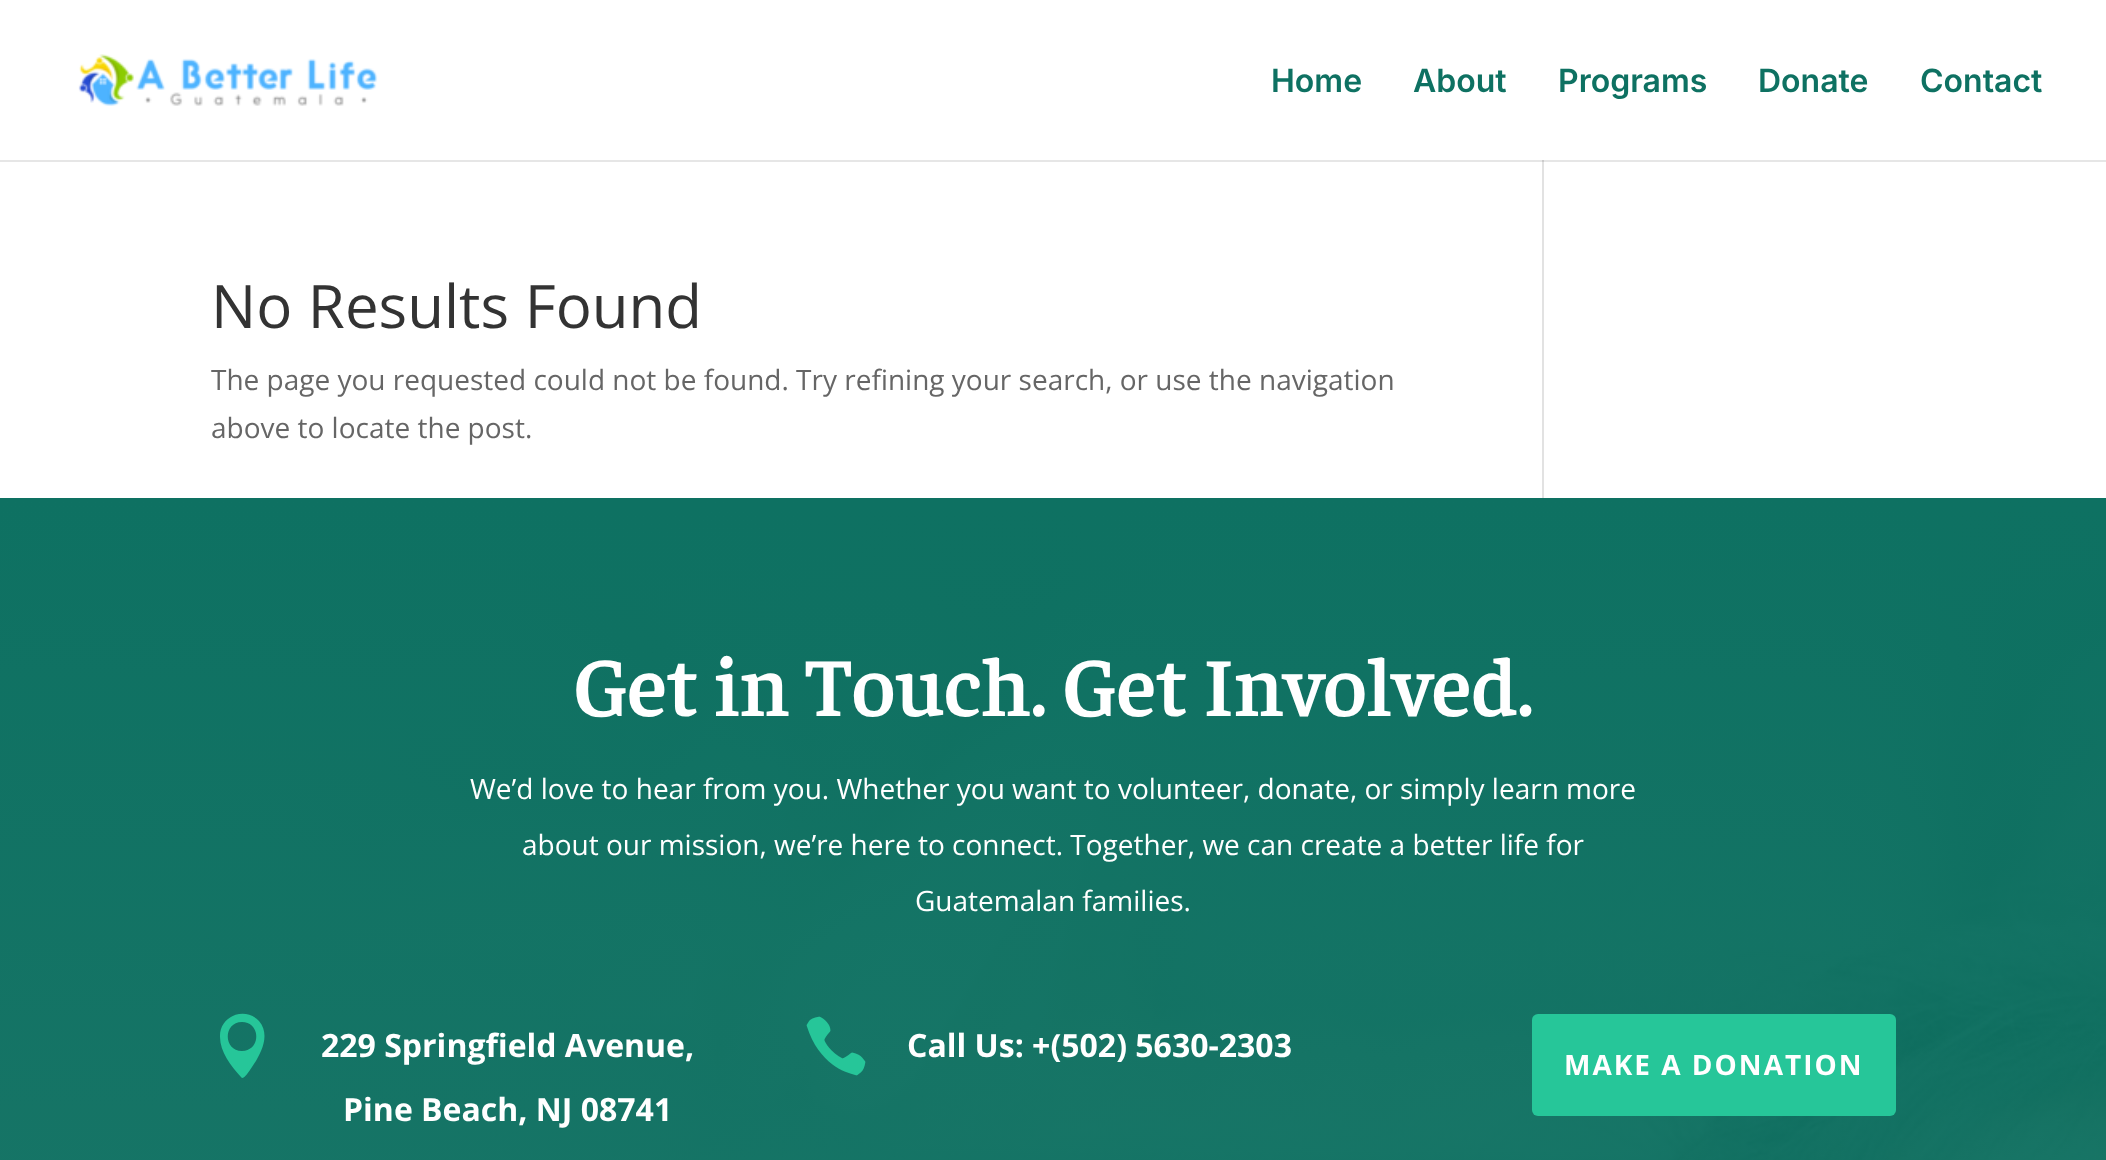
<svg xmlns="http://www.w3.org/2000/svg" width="2106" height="1160">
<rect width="100%" height="100%" fill="#fff"/>
<rect y="160" width="2106" height="2" fill="#e6e6e6"/>
<image x="78" y="54" width="300" height="52" href="media/1.png"/>
<text x="1271" y="92" style="font-family:Inter;font-size:32px;font-weight:600;fill:#0e7162">Home</text>
<text x="1413" y="92" style="font-family:Inter;font-size:32px;font-weight:600;fill:#0e7162">About</text>
<text x="1558" y="92" style="font-family:Inter;font-size:32px;font-weight:600;fill:#0e7162">Programs</text>
<text x="1758" y="92" style="font-family:Inter;font-size:32px;font-weight:600;fill:#0e7162">Donate</text>
<text x="1920" y="92" style="font-family:Inter;font-size:32px;font-weight:600;fill:#0e7162">Contact</text>
<text x="211" y="328" style="font-family:Open Sans;font-size:60px;fill:#333">No Results Found</text>
<text x="211" y="390" style="font-family:Open Sans;font-size:28px;fill:#666">The page you requested could not be found. Try refining your search, or use the navigation</text>
<text x="211" y="438" style="font-family:Open Sans;font-size:28px;fill:#666">above to locate the post.</text>
<rect x="1542" y="160" width="2" height="338" fill="#e2e2e2"/>
<rect x="1542" y="160" width="2" height="2" fill="#cbcbcb"/>
<image x="0" y="498" width="2106" height="662" href="media/2.png"/>
<text x="573" y="716" style="font-family:Faustina;font-size:84px;font-weight:600;fill:#fff">Get in Touch. Get Involved.</text>
<text x="470" y="799" style="font-family:Open Sans;font-size:28px;fill:#fff">We’d love to hear from you. Whether you want to volunteer, donate, or simply learn more</text>
<text x="522" y="855" style="font-family:Open Sans;font-size:28px;fill:#fff">about our mission, we’re here to connect. Together, we can create a better life for</text>
<text x="915" y="911" style="font-family:Open Sans;font-size:28px;fill:#fff">Guatemalan families.</text>
<path d="M241 1077l1 1c3 0 7-7 8-8c9-13 22-34 9-49c-14-15-40-5-39 16c0 15 11 29 21 40zm1-55c19 0 19 29 0 29c-19 0-19-29 0-29z" fill="#26c699"/>
<text x="321" y="1057" style="font-family:Open Sans;font-size:32px;font-weight:bold;fill:#fff">229 Springfield Avenue,</text>
<text x="343" y="1121" style="font-family:Open Sans;font-size:32px;font-weight:bold;fill:#fff">Pine Beach, NJ 08741</text>
<image x="806" y="1016" width="60" height="60" href="media/3.png"/>
<text x="907" y="1057" style="font-family:Open Sans;font-size:32px;font-weight:bold;fill:#fff">Call Us: +(502) 5630-2303</text>
<rect x="1532" y="1014" width="364" height="102" rx="6" fill="#26c699"/>
<text x="1564" y="1075" style="font-family:Open Sans;font-size:28px;font-weight:bold;letter-spacing:2px;fill:#fff">MAKE A DONATION</text>
</svg>
